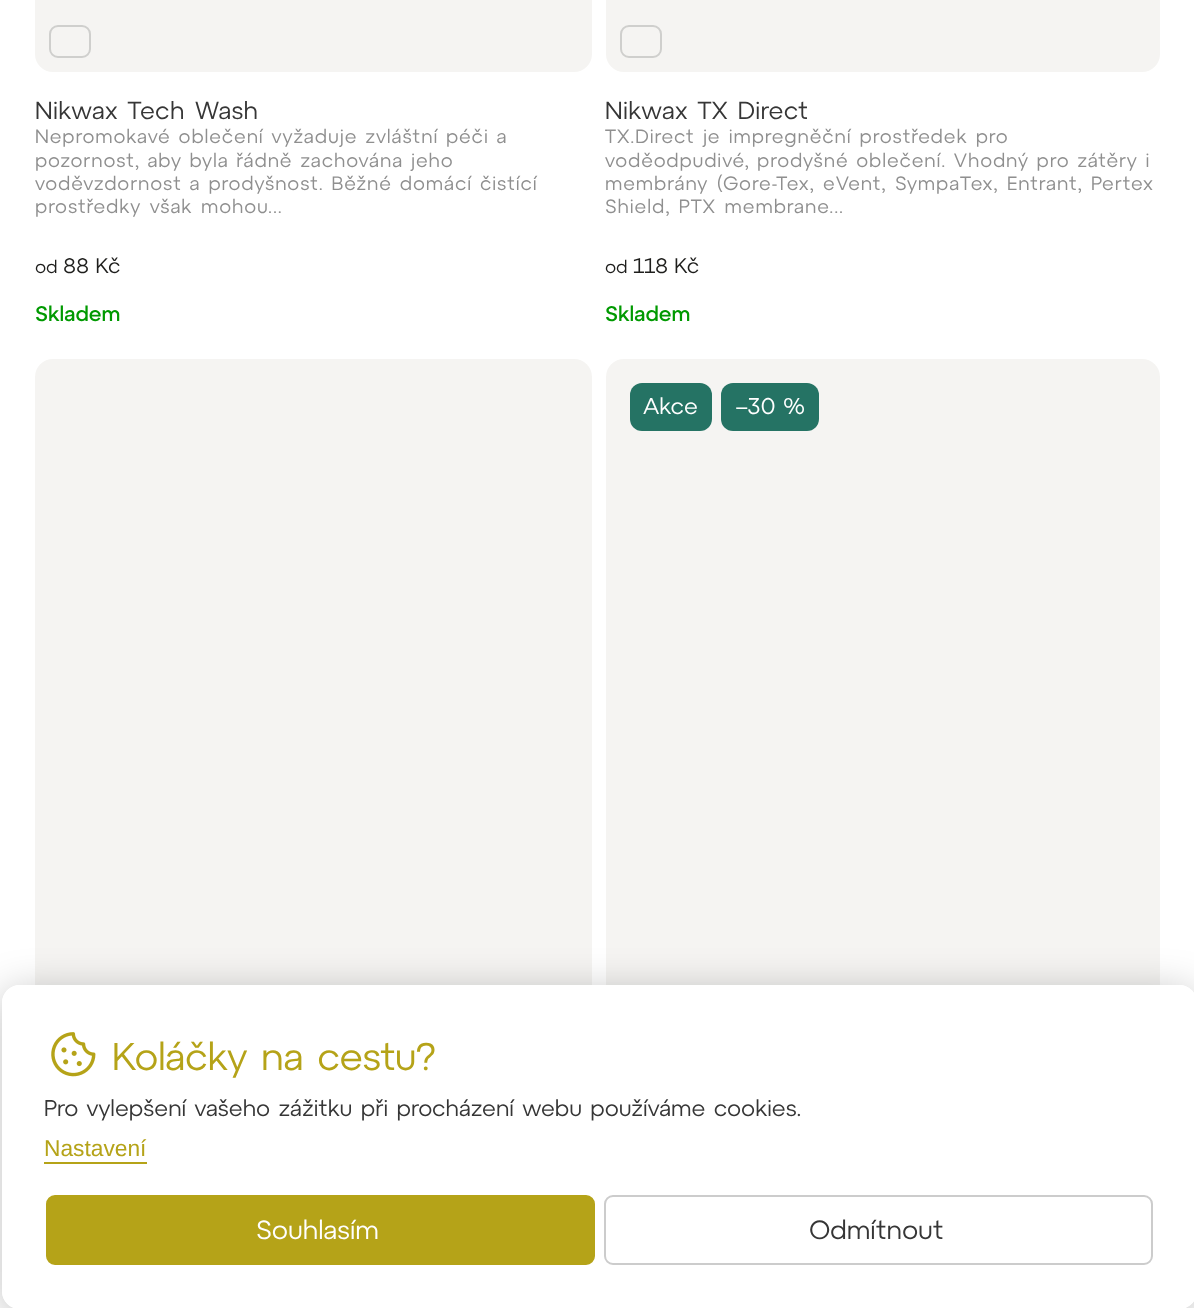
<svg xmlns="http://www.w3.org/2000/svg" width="1194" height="1308">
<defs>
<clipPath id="clip1"><path d="M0 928h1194v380h-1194zm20 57h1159c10 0 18 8 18 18v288c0 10-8 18-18 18h-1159c-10 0-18-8-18-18v-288c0-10 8-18 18-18z" clip-rule="evenodd"/></clipPath>
</defs>
<rect width="100%" height="100%" fill="#fff"/>
<rect x="35" y="-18" width="557" height="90" rx="18" fill="#f5f4f2"/>
<text x="35" y="119" word-spacing="2" style="font-family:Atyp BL;font-size:24.5px;letter-spacing:0.3px;fill:#363636">Nikwax Tech Wash</text>
<text x="35" y="143" word-spacing="1.25" style="font-family:Atyp BL;font-size:19.25px;letter-spacing:0.88px;fill:#8f8f8f">Nepromokavé oblečení vyžaduje zvláštní péči a</text>
<text x="35" y="167" word-spacing="1" style="font-family:Atyp BL;font-size:19.25px;letter-spacing:0.88px;fill:#8f8f8f">pozornost, aby byla řádně zachována jeho</text>
<text x="35" y="190" word-spacing="1.25" style="font-family:Atyp BL;font-size:19.25px;letter-spacing:0.88px;fill:#8f8f8f">voděvzdornost a prodyšnost. Běžné domácí čistící</text>
<text x="35" y="213" word-spacing="2" style="font-family:Atyp BL;font-size:19.25px;letter-spacing:0.88px;fill:#8f8f8f">prostředky však mohou...</text>
<rect x="50" y="26" width="40" height="31" rx="8" fill="none" stroke="#cfcfcd" stroke-width="2"/>
<text x="35" y="273" style="font-family:Atyp BL;font-size:18px;fill:#1e1e1c">od</text>
<text x="63" y="273" style="font-family:Atyp BL;font-size:21px;fill:#1e1e1c">88 Kč</text>
<text x="35" y="321" style="font-family:Atyp BL;font-size:21px;font-weight:500;fill:#009901">Skladem</text>
<rect x="606" y="-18" width="554" height="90" rx="18" fill="#f5f4f2"/>
<text x="605" y="119" word-spacing="2" style="font-family:Atyp BL;font-size:24.5px;letter-spacing:0.3px;fill:#363636">Nikwax TX Direct</text>
<text x="605" y="143" word-spacing="1.5" style="font-family:Atyp BL;font-size:19.25px;letter-spacing:0.88px;fill:#8f8f8f">TX.Direct je impregněční prostředek pro</text>
<text x="605" y="167" word-spacing="1" style="font-family:Atyp BL;font-size:19.25px;letter-spacing:0.88px;fill:#8f8f8f">voděodpudivé, prodyšné oblečení. Vhodný pro zátěry i</text>
<text x="605" y="190" word-spacing="2" style="font-family:Atyp BL;font-size:19.25px;letter-spacing:0.88px;fill:#8f8f8f">membrány (Gore-Tex, eVent, SympaTex, Entrant, Pertex</text>
<text x="605" y="213" word-spacing="2" style="font-family:Atyp BL;font-size:19.25px;letter-spacing:0.88px;fill:#8f8f8f">Shield, PTX membrane...</text>
<rect x="621" y="26" width="40" height="31" rx="8" fill="none" stroke="#cfcfcd" stroke-width="2"/>
<text x="605" y="273" style="font-family:Atyp BL;font-size:18px;fill:#1e1e1c">od</text>
<text x="633" y="273" style="font-family:Atyp BL;font-size:21px;fill:#1e1e1c">118 Kč</text>
<text x="605" y="321" style="font-family:Atyp BL;font-size:21px;font-weight:500;fill:#009901">Skladem</text>
<rect x="35" y="359" width="557" height="681" rx="18" fill="#f5f4f2"/>
<rect x="606" y="359" width="554" height="681" rx="18" fill="#f5f4f2"/>
<rect x="630" y="383" width="82" height="48" rx="12" fill="#257364"/>
<text x="643" y="414" style="font-family:Atyp BL;font-size:22.75px;fill:#fff">Akce</text>
<rect x="721" y="383" width="98" height="48" rx="12" fill="#257364"/>
<text x="736" y="414" word-spacing="1" style="font-family:Atyp BL;font-size:22.75px;fill:#fff">–30 %</text>
<g clip-path="url(#clip1)">
<rect x="2" y="992" width="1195" height="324" rx="18" fill="#00000040" filter="blur(21px)"/>
</g>
<rect x="2" y="985" width="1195" height="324" rx="18" fill="#fff"/>
<image x="51" y="1032" width="45" height="45" href="media/1.png"/>
<text x="112" y="1070" word-spacing="3" style="font-family:Atyp BL;font-size:38.5px;letter-spacing:-0.4px;fill:#b5a318">Koláčky na cestu?</text>
<text x="44" y="1116" word-spacing="1.5" style="font-family:Atyp BL;font-size:22.75px;fill:#363636">Pro vylepšení vašeho zážitku při procházení webu používáme cookies.</text>
<text x="44" y="1156" style="font-family:Liberation Sans;font-size:22.75px;fill:#b5a318">Nastavení</text>
<rect x="44" y="1162" width="103" height="2" fill="#b5a318"/>
<rect x="47" y="1196" width="547" height="68" rx="8" fill="#b5a318" stroke="#b5a318" stroke-width="2"/>
<text x="256" y="1239" style="font-family:Atyp BL;font-size:26.25px;fill:#fff">Souhlasím</text>
<rect x="605" y="1196" width="547" height="68" rx="8" fill="none" stroke="#ccc" stroke-width="2"/>
<text x="809" y="1239" style="font-family:Atyp BL;font-size:26.25px;fill:#363636">Odmítnout</text>
</svg>
